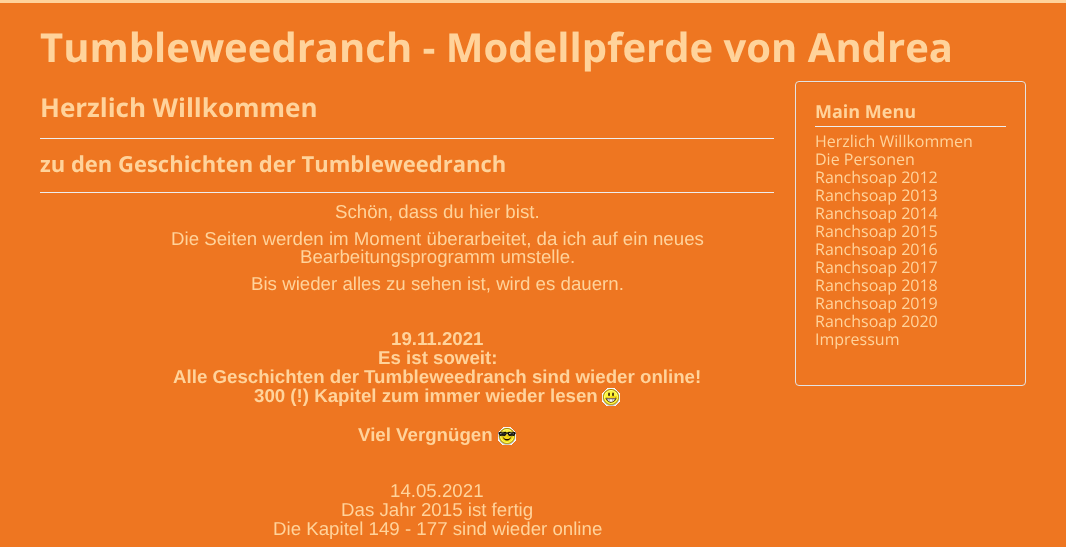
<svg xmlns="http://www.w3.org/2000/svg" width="1066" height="547">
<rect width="100%" height="100%" fill="#ee7621"/>
<rect width="1066" height="3" fill="#ffd39b"/>
<text x="40" y="62" style="font-family:Open Sans;font-size:40px;font-weight:bold;fill:#ffd39b">Tumbleweedranch - Modellpferde von Andrea</text>
<rect x="40" y="138" width="734" height="1" fill="#eee"/>
<text x="40" y="117" style="font-family:Open Sans;font-size:26px;font-weight:bold;fill:#ffd39b">Herzlich Willkommen</text>
<rect x="40" y="192" width="734" height="1" fill="#eee"/>
<text x="40" y="172" style="font-family:Open Sans;font-size:22px;font-weight:bold;fill:#ffd39b">zu den Geschichten der Tumbleweedranch</text>
<text x="335" y="218" style="font-family:Liberation Sans;font-size:18.7px;fill:#ffd39b">Schön, dass du hier bist.</text>
<text x="171" y="245" style="font-family:Liberation Sans;font-size:18.7px;fill:#ffd39b">Die Seiten werden im Moment überarbeitet, da ich auf ein neues</text>
<text x="300" y="263" style="font-family:Liberation Sans;font-size:18.7px;fill:#ffd39b">Bearbeitungsprogramm umstelle.</text>
<text x="251" y="290" style="font-family:Liberation Sans;font-size:18.7px;fill:#ffd39b">Bis wieder alles zu sehen ist, wird es dauern.</text>
<text x="391" y="345" style="font-family:Liberation Sans;font-size:18.7px;font-weight:bold;fill:#ffd39b">19.11.2021</text>
<text x="378" y="364" style="font-family:Liberation Sans;font-size:18.7px;font-weight:bold;fill:#ffd39b">Es ist soweit:</text>
<text x="173" y="383" style="font-family:Liberation Sans;font-size:18.7px;font-weight:bold;fill:#ffd39b">Alle Geschichten der Tumbleweedranch sind wieder online!</text>
<text x="254" y="402" style="font-family:Liberation Sans;font-size:18.7px;font-weight:bold;fill:#ffd39b">300 (!) Kapitel zum immer wieder lesen</text>
<image x="602" y="388" width="18" height="18" href="media/1.png"/>
<text x="358" y="441" style="font-family:Liberation Sans;font-size:18.7px;font-weight:bold;fill:#ffd39b">Viel Vergnügen</text>
<image x="498" y="427" width="18" height="18" href="media/2.png"/>
<text x="390" y="497" style="font-family:Liberation Sans;font-size:18.7px;fill:#ffd39b">14.05.2021</text>
<text x="341" y="516" style="font-family:Liberation Sans;font-size:18.7px;fill:#ffd39b">Das Jahr 2015 ist fertig</text>
<text x="273" y="535" style="font-family:Liberation Sans;font-size:18.7px;fill:#ffd39b">Die Kapitel 149 - 177 sind wieder online</text>
<path d="M799 83h223c2 0 3 1 3 3v-1c0-2-1-3-3-3h-223c-2 0-3 1-3 3v1c0-2 1-3 3-3z" fill="#e2701f"/>
<rect x="795.5" y="81.5" width="230" height="304" rx="3.5" fill="none" stroke="#e3e3e3"/>
<rect x="815" y="126" width="191" height="1" fill="#eee"/>
<text x="815" y="118" style="font-family:Open Sans;font-size:18px;font-weight:bold;fill:#ffd39b">Main Menu</text>
<text x="815" y="147" style="font-family:Open Sans;font-size:16px;fill:#ffd39b">Herzlich Willkommen</text>
<text x="815" y="165" style="font-family:Open Sans;font-size:16px;fill:#ffd39b">Die Personen</text>
<text x="815" y="183" style="font-family:Open Sans;font-size:16px;fill:#ffd39b">Ranchsoap 2012</text>
<text x="815" y="201" style="font-family:Open Sans;font-size:16px;fill:#ffd39b">Ranchsoap 2013</text>
<text x="815" y="219" style="font-family:Open Sans;font-size:16px;fill:#ffd39b">Ranchsoap 2014</text>
<text x="815" y="237" style="font-family:Open Sans;font-size:16px;fill:#ffd39b">Ranchsoap 2015</text>
<text x="815" y="255" style="font-family:Open Sans;font-size:16px;fill:#ffd39b">Ranchsoap 2016</text>
<text x="815" y="273" style="font-family:Open Sans;font-size:16px;fill:#ffd39b">Ranchsoap 2017</text>
<text x="815" y="291" style="font-family:Open Sans;font-size:16px;fill:#ffd39b">Ranchsoap 2018</text>
<text x="815" y="309" style="font-family:Open Sans;font-size:16px;fill:#ffd39b">Ranchsoap 2019</text>
<text x="815" y="327" style="font-family:Open Sans;font-size:16px;fill:#ffd39b">Ranchsoap 2020</text>
<text x="815" y="345" style="font-family:Open Sans;font-size:16px;fill:#ffd39b">Impressum</text>
</svg>
